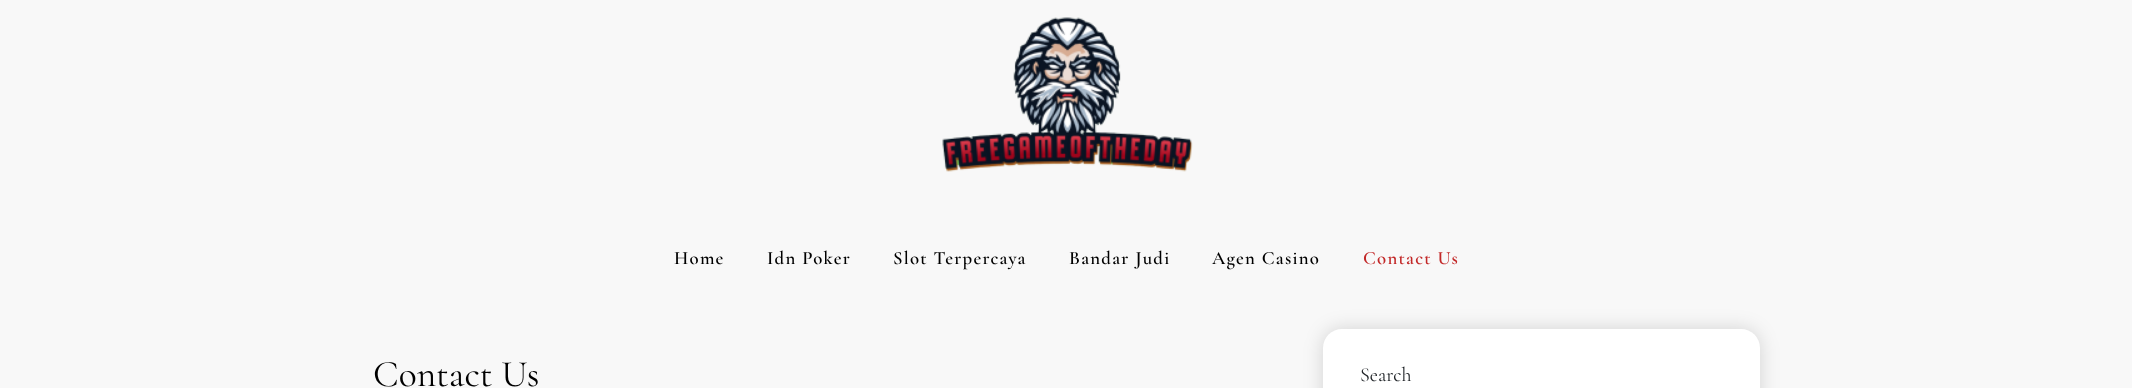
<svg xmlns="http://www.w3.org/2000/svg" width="2132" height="388">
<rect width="100%" height="100%" fill="#f8f8f8"/>
<image x="942" y="17" width="251" height="155" href="media/1.png"/>
<text x="674" y="264" style="font-family:Cormorant Garamond;font-size:18.75px;font-weight:600;letter-spacing:1.25px;fill:#000">Home</text>
<text x="767" y="264" style="font-family:Cormorant Garamond;font-size:18.75px;font-weight:600;letter-spacing:1.25px;fill:#000">Idn Poker</text>
<text x="893" y="264" style="font-family:Cormorant Garamond;font-size:18.75px;font-weight:600;letter-spacing:1.25px;fill:#000">Slot Terpercaya</text>
<text x="1069" y="264" style="font-family:Cormorant Garamond;font-size:18.75px;font-weight:600;letter-spacing:1.25px;fill:#000">Bandar Judi</text>
<text x="1212" y="264" style="font-family:Cormorant Garamond;font-size:18.75px;font-weight:600;letter-spacing:1.25px;fill:#000">Agen Casino</text>
<text x="1363" y="264" style="font-family:Cormorant Garamond;font-size:18.75px;font-weight:600;letter-spacing:1.25px;fill:#c22828">Contact Us</text>
<text x="373" y="386" style="font-family:Cormorant Garamond;font-size:37.5px;fill:#000">Contact Us</text>
<rect x="1323" y="329" width="437" height="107" rx="19" fill="#00000026" filter="blur(9.5px)"/>
<rect x="1323" y="329" width="437" height="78" rx="19" fill="#fff"/>
<text x="1360" y="381" style="font-family:Cormorant Garamond;font-size:20px;fill:#212529">Search</text>
</svg>
